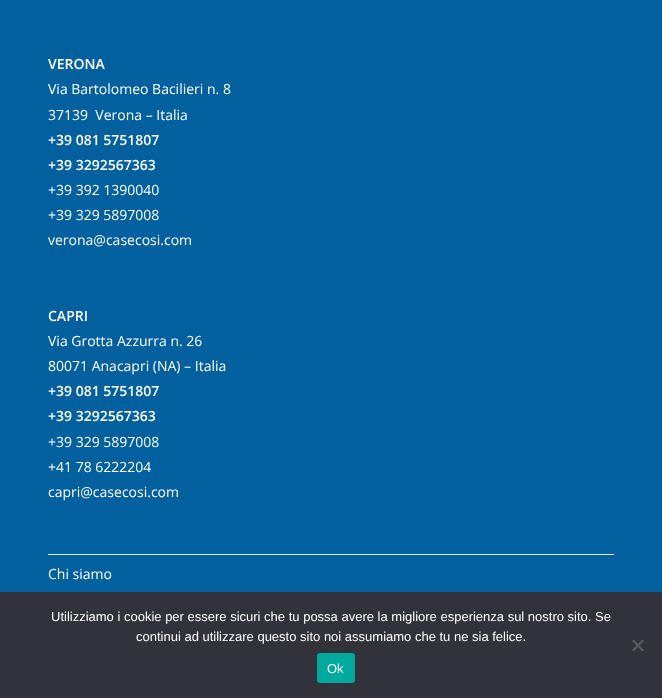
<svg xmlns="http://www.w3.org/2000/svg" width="662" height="698">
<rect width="100%" height="100%" fill="#02609f"/>
<text x="48" y="69" style="font-family:Open Sans;font-size:14px;font-weight:600;fill:#fff">VERONA</text>
<text x="48" y="94" style="font-family:Open Sans;font-size:14px;fill:#fff">Via Bartolomeo Bacilieri n. 8</text>
<text x="48" y="120" style="font-family:Open Sans;font-size:14px;fill:#fff" xml:space="preserve">37139  Verona – Italia</text>
<text x="48" y="145" style="font-family:Open Sans;font-size:14px;font-weight:600;fill:#fff">+39 081 5751807</text>
<text x="48" y="170" style="font-family:Open Sans;font-size:14px;font-weight:600;fill:#fff">+39 3292567363</text>
<text x="48" y="195" style="font-family:Open Sans;font-size:14px;fill:#fff">+39 392 1390040</text>
<text x="48" y="220" style="font-family:Open Sans;font-size:14px;fill:#fff">+39 329 5897008</text>
<text x="48" y="245" style="font-family:Open Sans;font-size:14px;fill:#fff">verona@casecosi.com</text>
<text x="48" y="321" style="font-family:Open Sans;font-size:14px;font-weight:600;fill:#fff">CAPRI</text>
<text x="48" y="346" style="font-family:Open Sans;font-size:14px;fill:#fff">Via Grotta Azzurra n. 26</text>
<text x="48" y="371" style="font-family:Open Sans;font-size:14px;fill:#fff">80071 Anacapri (NA) – Italia</text>
<text x="48" y="396" style="font-family:Open Sans;font-size:14px;font-weight:600;fill:#fff">+39 081 5751807</text>
<text x="48" y="421" style="font-family:Open Sans;font-size:14px;font-weight:600;fill:#fff">+39 3292567363</text>
<text x="48" y="447" style="font-family:Open Sans;font-size:14px;fill:#fff">+39 329 5897008</text>
<text x="48" y="472" style="font-family:Open Sans;font-size:14px;fill:#fff">+41 78 6222204</text>
<text x="48" y="497" style="font-family:Open Sans;font-size:14px;fill:#fff">capri@casecosi.com</text>
<rect x="48" y="554" width="566" height="1" fill="#e9e9e9"/>
<text x="48" y="579" style="font-family:Open Sans;font-size:14px;fill:#fff">Chi siamo</text>
<rect y="592" width="662" height="106" fill="#32323a"/>
<text x="51" y="621" style="font-family:Liberation Sans;font-size:13px;fill:#fff">Utilizziamo i cookie per essere sicuri che tu possa avere la migliore esperienza sul nostro sito. Se</text>
<text x="136" y="641" style="font-family:Liberation Sans;font-size:13px;fill:#fff">continui ad utilizzare questo sito noi assumiamo che tu ne sia felice.</text>
<path d="M642.5 639.5l1.5 1.5l-10.5 10.5l-1.5-1.5z" fill="#59595d"/>
<path d="M632 641l1.5-1.5l10.5 10.5l-1.5 1.5z" fill="#59595d"/>
<rect x="317" y="653" width="38" height="30" rx="3" fill="#00a99d"/>
<text x="327" y="673" style="font-family:Liberation Sans;font-size:13px;fill:#fff">Ok</text>
</svg>
